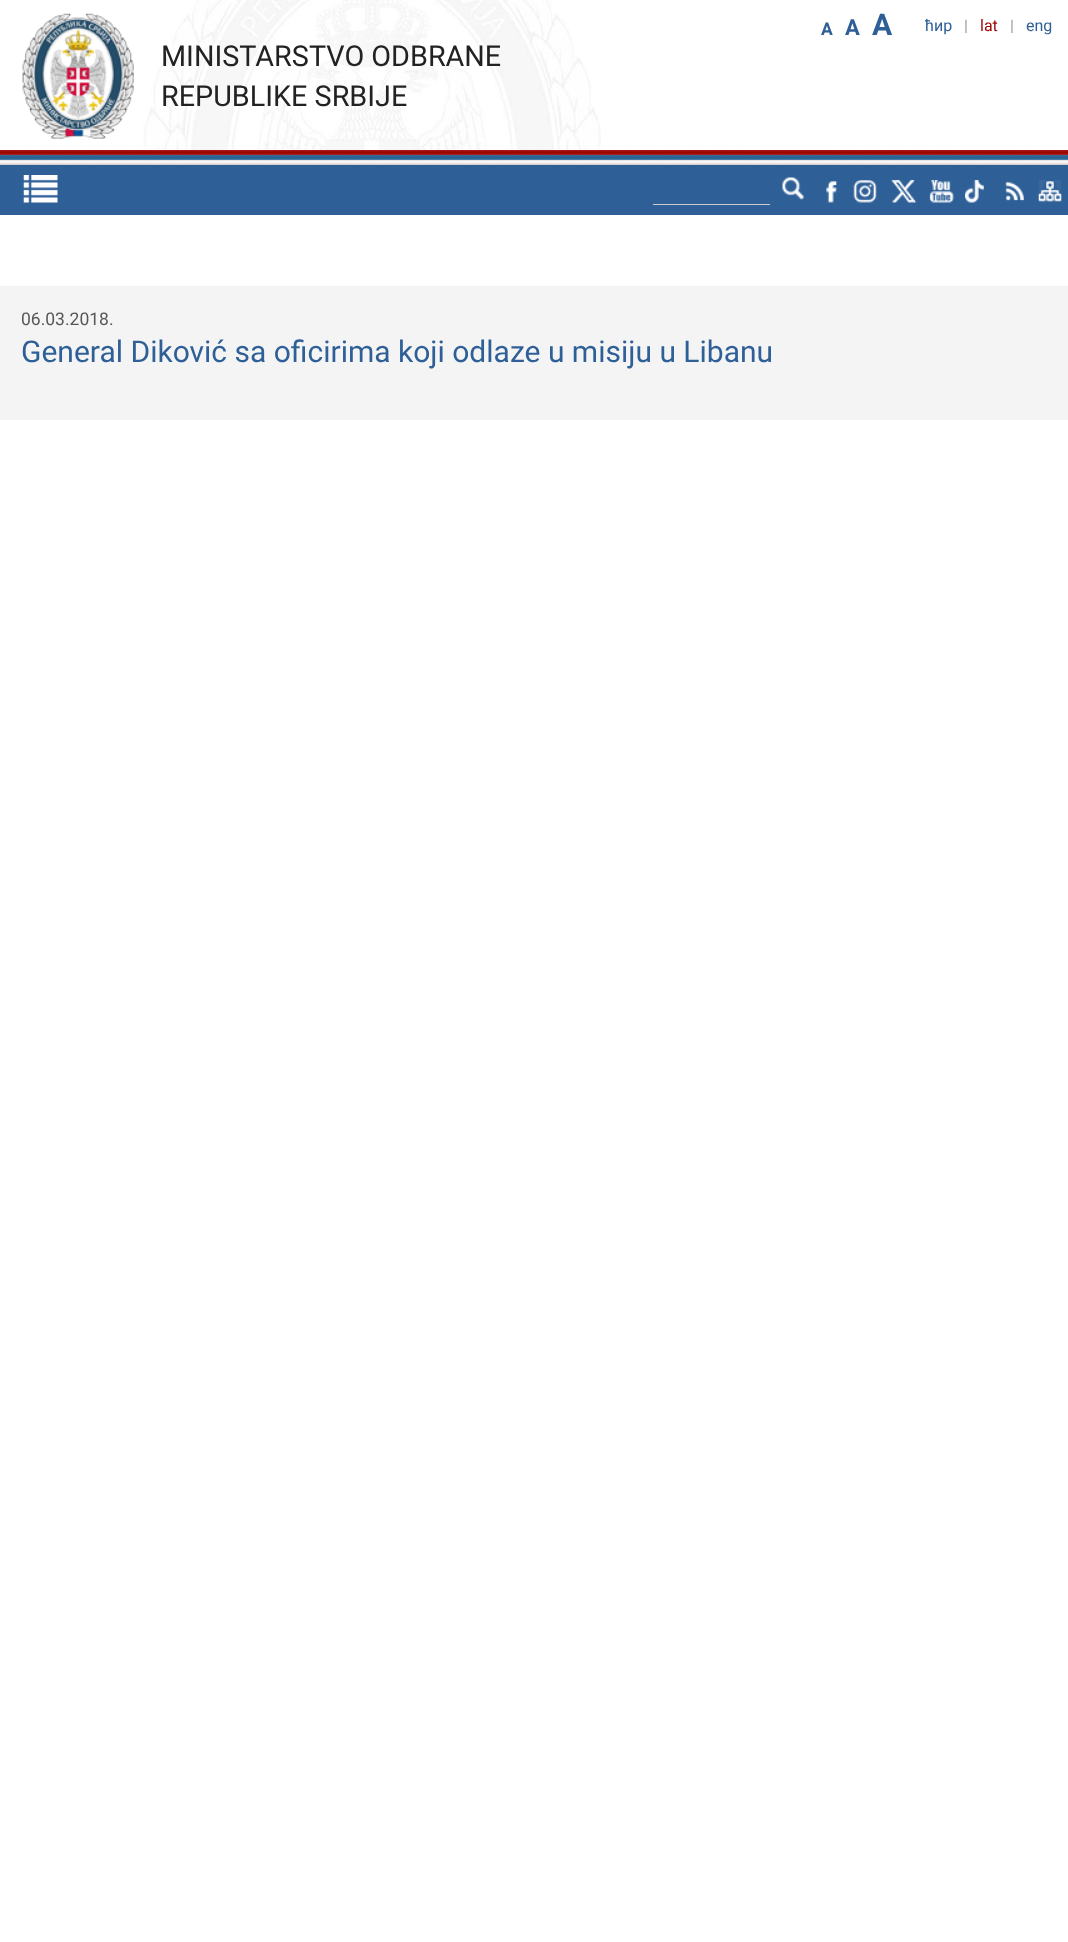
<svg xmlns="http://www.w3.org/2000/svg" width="1068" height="1942">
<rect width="100%" height="100%" fill="#fff"/>
<image x="0" y="0" width="1068" height="150" href="media/1.png"/>
<text x="821" y="35" style="font-family:Roboto;font-size:17.5px;font-weight:bold;fill:#2e5f97">A</text>
<text x="845" y="35" style="font-family:Roboto;font-size:22px;font-weight:bold;fill:#2e5f97">A</text>
<text x="872" y="35" style="font-family:Roboto;font-size:30px;font-weight:bold;fill:#2e5f97">A</text>
<text x="925" y="31" style="font-family:Roboto;font-size:16px;fill:#2e5f97">ћир</text>
<text x="964" y="31" style="font-family:Roboto;font-size:16px;fill:#999">|</text>
<text x="980" y="31" style="font-family:Roboto;font-size:16px;fill:#9e0203">lat</text>
<text x="1010" y="31" style="font-family:Roboto;font-size:16px;fill:#999">|</text>
<text x="1026" y="31" style="font-family:Roboto;font-size:16px;fill:#2e5f97">eng</text>
<image x="22" y="13" width="112" height="126" href="media/2.png"/>
<text x="161" y="66" style="font-family:Roboto;font-size:28.75px;fill:#222">MINISTARSTVO ODBRANE</text>
<text x="161" y="106" style="font-family:Roboto;font-size:28.75px;fill:#222">REPUBLIKE SRBIJE</text>
<image x="0" y="150" width="1068" height="15" href="media/3.png"/>
<rect y="165" width="1068" height="50" fill="#2e5f97"/>
<image x="23" y="175" width="35" height="28" href="media/4.png"/>
<image x="782" y="177" width="22" height="24" href="media/5.png"/>
<rect x="653" y="204" width="117" height="1" fill="#ccc"/>
<image x="826" y="181" width="11" height="22" href="media/6.png"/>
<image x="853" y="180" width="24" height="23" href="media/7.png"/>
<image x="891" y="180" width="26" height="23" href="media/8.png"/>
<image x="929" y="180" width="25" height="23" href="media/9.png"/>
<image x="965" y="180" width="19" height="23" href="media/10.png"/>
<image x="1005" y="181" width="19" height="20" href="media/11.png"/>
<image x="1038" y="180" width="24" height="22" href="media/12.png"/>
<rect y="286" width="1068" height="134" fill="#f4f4f4"/>
<text x="21" y="325" style="font-family:Roboto;font-size:17.5px;fill:#575757">06.03.2018.</text>
<text x="21" y="362" style="font-family:Roboto;font-size:30px;fill:#2e5f97">General Diković sa oficirima koji odlaze u misiju u Libanu</text>
</svg>
